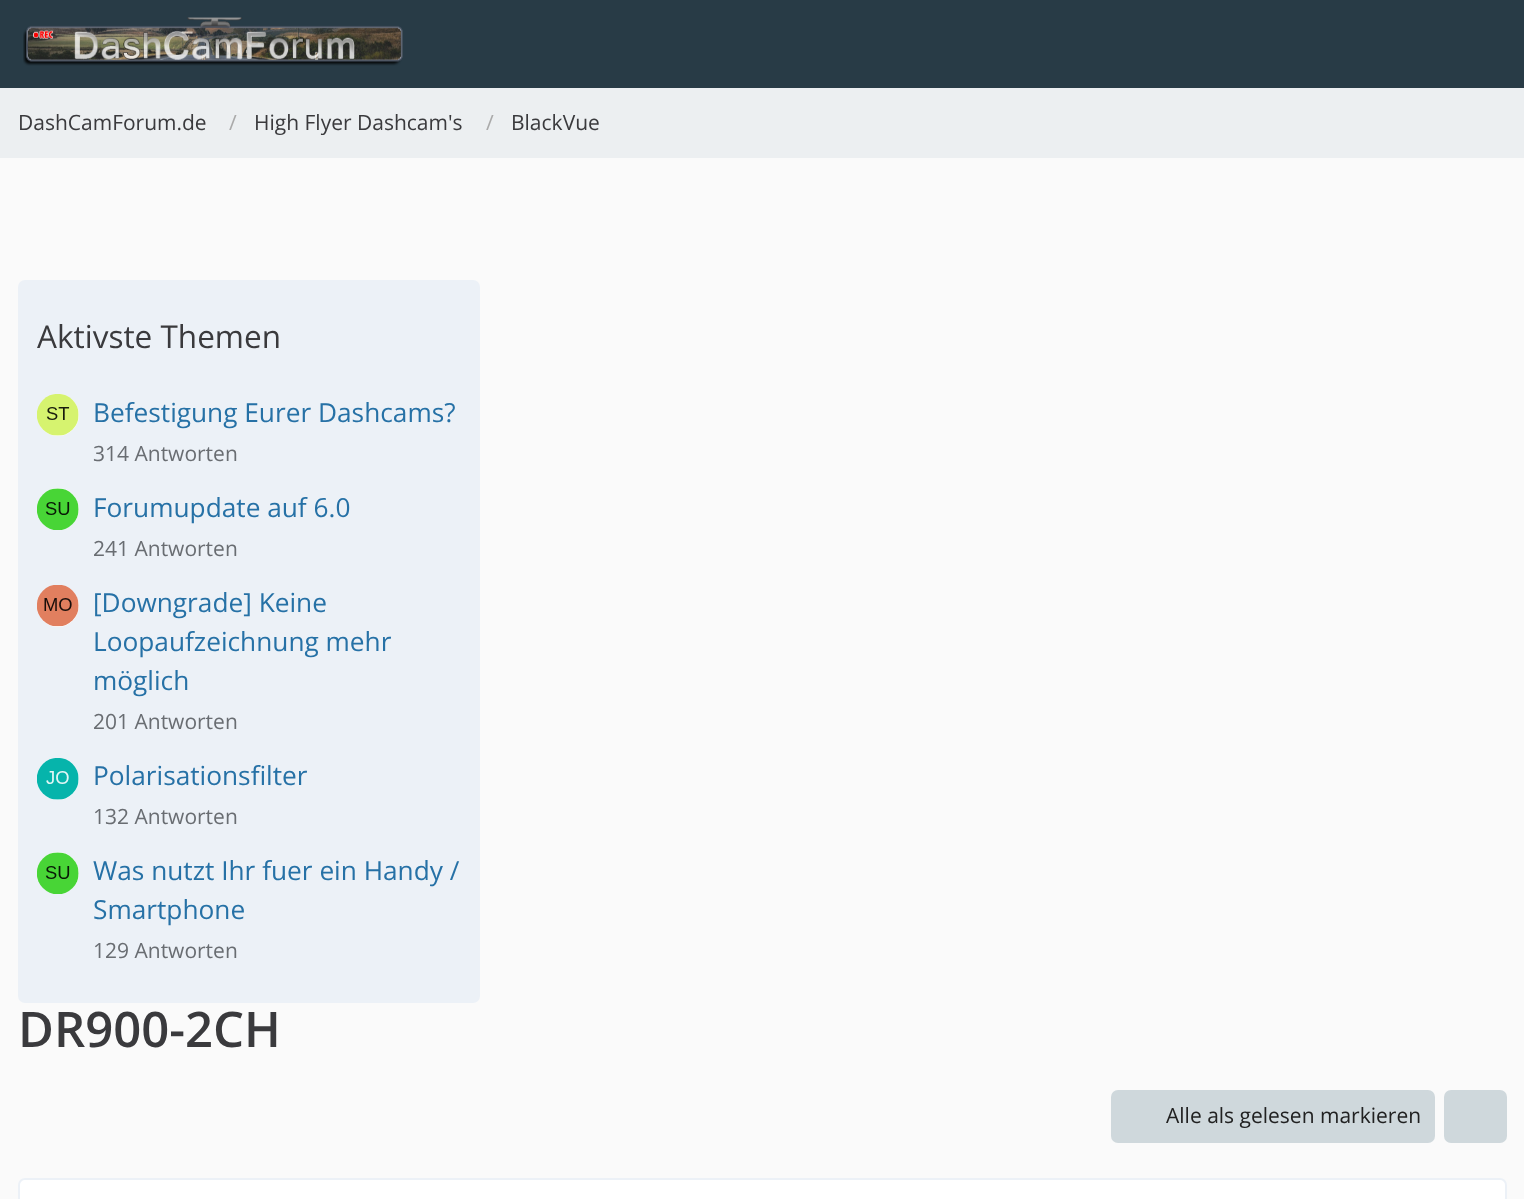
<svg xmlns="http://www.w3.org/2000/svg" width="1524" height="1199">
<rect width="100%" height="100%" fill="#fafafa"/>
<rect width="1524" height="88" fill="#283b46"/>
<image x="23" y="17" width="380" height="49" href="media/1.png"/>
<rect y="88" width="1524" height="70" fill="#eceff1"/>
<text x="18" y="130" style="font-family:Open Sans;font-size:21px;fill:#3a3a3d">DashCamForum.de</text>
<text x="229" y="130" style="font-family:Open Sans;font-size:21px;fill:#aaa">/</text>
<text x="254" y="130" style="font-family:Open Sans;font-size:21px;fill:#3a3a3d">High Flyer Dashcam's</text>
<text x="486" y="130" style="font-family:Open Sans;font-size:21px;fill:#aaa">/</text>
<text x="511" y="130" style="font-family:Open Sans;font-size:21px;fill:#3a3a3d">BlackVue</text>
<rect x="18" y="280" width="462" height="723" rx="7" fill="#ecf1f7"/>
<text x="37" y="348" style="font-family:Open Sans;font-size:31.5px;fill:#3a3a3d">Aktivste Themen</text>
<circle cx="58" cy="415" r="21" fill="#fff"/>
<image x="37" y="394" width="42" height="42" href="media/2.png"/>
<text x="93" y="422" style="font-family:Open Sans;font-size:26.25px;fill:#2671a6">Befestigung Eurer Dashcams?</text>
<text x="93" y="461" style="font-family:Open Sans;font-size:21px;fill:#696d72">314 Antworten</text>
<circle cx="58" cy="509" r="21" fill="#fff"/>
<image x="37" y="488" width="42" height="42" href="media/3.png"/>
<text x="93" y="517" style="font-family:Open Sans;font-size:26.25px;fill:#2671a6">Forumupdate auf 6.0</text>
<text x="93" y="556" style="font-family:Open Sans;font-size:21px;fill:#696d72">241 Antworten</text>
<circle cx="58" cy="606" r="21" fill="#fff"/>
<image x="37" y="585" width="42" height="42" href="media/4.png"/>
<text x="93" y="612" style="font-family:Open Sans;font-size:26.25px;fill:#2671a6">[Downgrade] Keine</text>
<text x="93" y="651" style="font-family:Open Sans;font-size:26.25px;fill:#2671a6">Loopaufzeichnung mehr</text>
<text x="93" y="690" style="font-family:Open Sans;font-size:26.25px;fill:#2671a6">möglich</text>
<text x="93" y="729" style="font-family:Open Sans;font-size:21px;fill:#696d72">201 Antworten</text>
<circle cx="58" cy="779" r="21" fill="#fff"/>
<image x="37" y="758" width="42" height="42" href="media/5.png"/>
<text x="93" y="785" style="font-family:Open Sans;font-size:26.25px;fill:#2671a6">Polarisationsfilter</text>
<text x="93" y="824" style="font-family:Open Sans;font-size:21px;fill:#696d72">132 Antworten</text>
<circle cx="58" cy="873" r="21" fill="#fff"/>
<image x="37" y="852" width="42" height="42" href="media/6.png"/>
<text x="93" y="880" style="font-family:Open Sans;font-size:26.25px;fill:#2671a6">Was nutzt Ihr fuer ein Handy /</text>
<text x="93" y="919" style="font-family:Open Sans;font-size:26.25px;fill:#2671a6">Smartphone</text>
<text x="93" y="958" style="font-family:Open Sans;font-size:21px;fill:#696d72">129 Antworten</text>
<text x="18" y="1047" style="font-family:Open Sans;font-size:49px;font-weight:600;fill:#3a3a3d">DR900-2CH</text>
<rect x="1111" y="1090" width="324" height="53" rx="7" fill="#cfd8dc"/>
<text x="1166" y="1123" style="font-family:Open Sans;font-size:21px;fill:#212121">Alle als gelesen markieren</text>
<rect x="1444" y="1090" width="63" height="53" rx="7" fill="#cfd8dc"/>
<rect x="19" y="1179" width="1487" height="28" rx="6" fill="#fff" stroke="#ecf1f7" stroke-width="2"/>
</svg>
